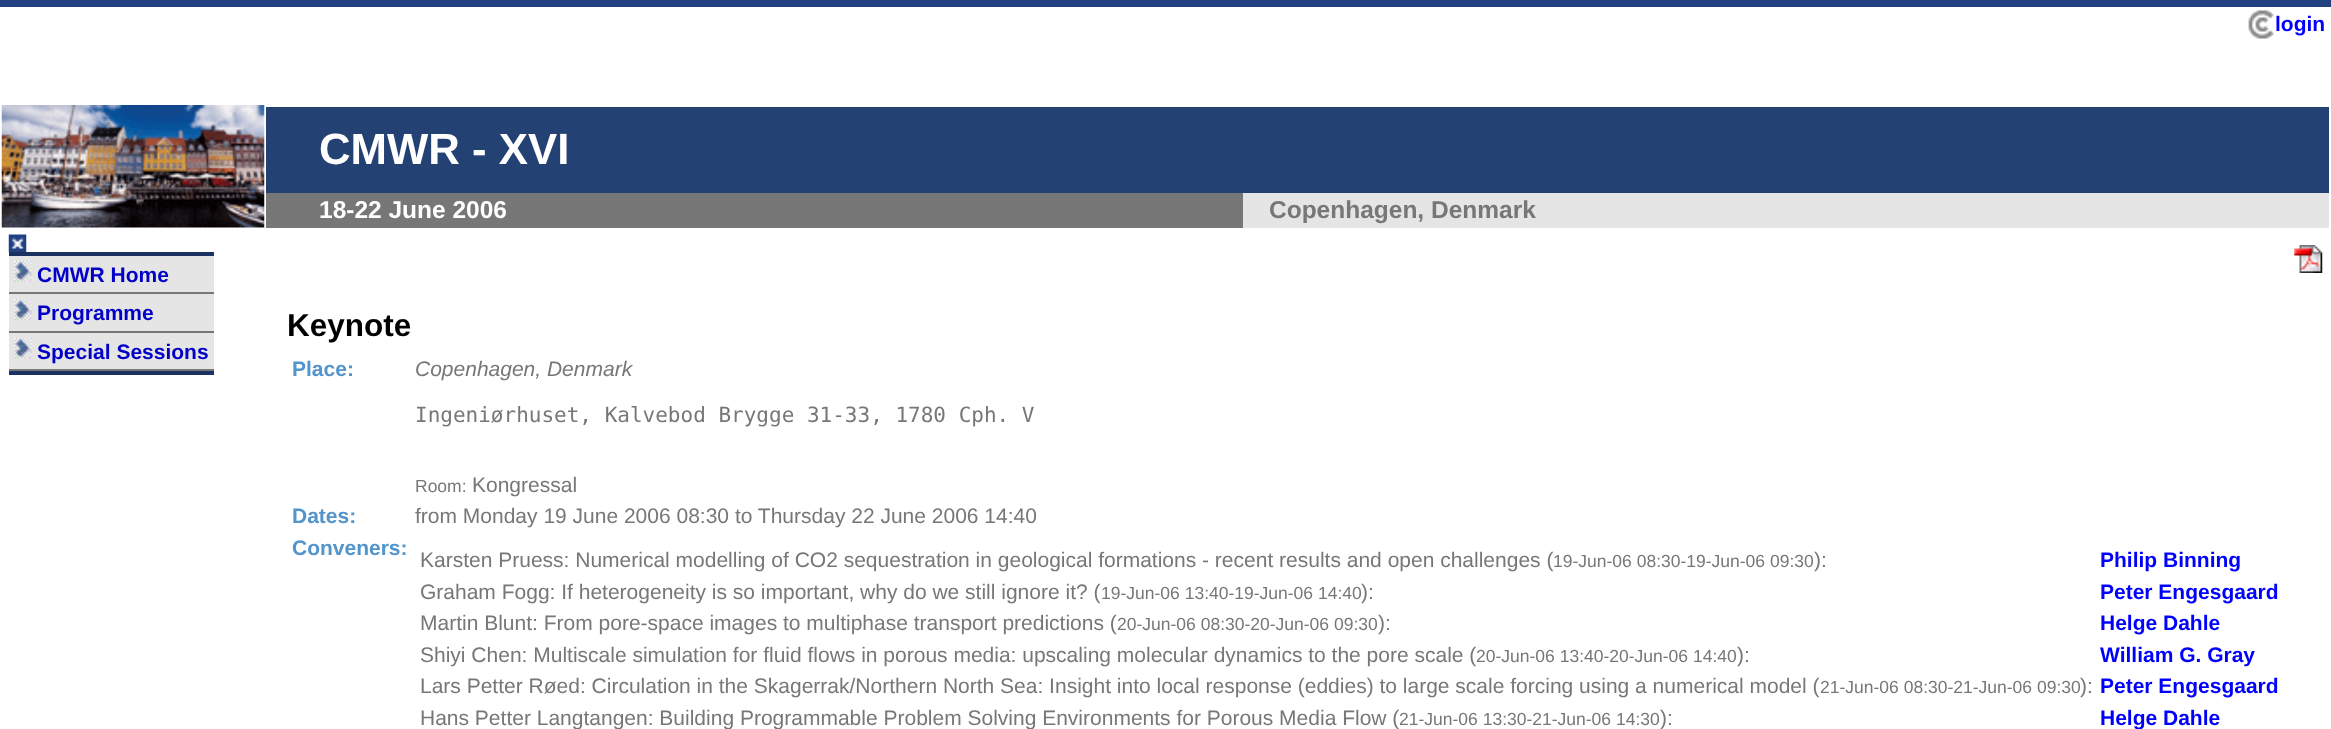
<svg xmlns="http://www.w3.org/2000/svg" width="2331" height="729">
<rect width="100%" height="100%" fill="#fff"/>
<rect width="2331" height="7" fill="#204080"/>
<image x="2248" y="10" width="26" height="29" href="media/1.png"/>
<text x="2275" y="31" style="font-family:Liberation Sans;font-size:21px;font-weight:bold;fill:#00f">login</text>
<image x="1" y="105" width="264" height="123" href="media/2.png"/>
<rect x="266" y="107" width="2063" height="86" fill="#234173"/>
<text x="319" y="164" style="font-family:Liberation Sans;font-size:43.75px;font-weight:bold;fill:#fff">CMWR - XVI</text>
<rect x="266" y="193" width="977" height="35" fill="#777"/>
<text x="319" y="218" style="font-family:Liberation Sans;font-size:24.5px;font-weight:bold;fill:#fff">18-22 June 2006</text>
<rect x="1243" y="193" width="1086" height="35" fill="#e5e5e5"/>
<text x="1269" y="218" style="font-family:Liberation Sans;font-size:24.5px;font-weight:bold;fill:#777">Copenhagen, Denmark</text>
<rect x="9" y="252" width="205" height="4" fill="#1b3162"/>
<image x="8" y="234" width="19" height="18" href="media/3.png"/>
<rect x="9" y="256" width="205" height="36" fill="#e5e5e5"/>
<rect x="9" y="292" width="205" height="2" fill="#777"/>
<image x="14" y="260" width="18" height="22" href="media/4.png"/>
<text x="37" y="282" style="font-family:Liberation Sans;font-size:21px;font-weight:bold;fill:#0200c6">CMWR Home</text>
<rect x="9" y="294" width="205" height="37" fill="#e5e5e5"/>
<rect x="9" y="331" width="205" height="2" fill="#777"/>
<image x="14" y="299" width="18" height="22" href="media/5.png"/>
<text x="37" y="320" style="font-family:Liberation Sans;font-size:21px;font-weight:bold;fill:#0200c6">Programme</text>
<rect x="9" y="333" width="205" height="36" fill="#e5e5e5"/>
<rect x="9" y="369" width="205" height="2" fill="#777"/>
<image x="14" y="337" width="18" height="22" href="media/4.png"/>
<text x="37" y="359" style="font-family:Liberation Sans;font-size:21px;font-weight:bold;fill:#0200c6">Special Sessions</text>
<rect x="9" y="371" width="205" height="4" fill="#1b3162"/>
<image x="2294" y="245" width="29" height="28" href="media/6.png"/>
<text x="287" y="336" style="font-family:Liberation Sans;font-size:31.5px;font-weight:bold;fill:#000">Keynote</text>
<text x="292" y="376" style="font-family:Liberation Sans;font-size:21px;font-weight:bold;fill:#5294cc">Place:</text>
<text x="415" y="376" style="font-family:Liberation Sans;font-size:21px;font-style:italic;fill:#777">Copenhagen, Denmark</text>
<text x="415" y="422" style="font-family:DejaVu Sans Mono;font-size:21px;fill:#777">Ingeniørhuset, Kalvebod Brygge 31-33, 1780 Cph. V</text>
<text x="415" y="492" style="font-family:Liberation Sans;font-size:17.5px;fill:#777">Room:</text>
<text x="472" y="492" style="font-family:Liberation Sans;font-size:21px;fill:#777">Kongressal</text>
<text x="292" y="523" style="font-family:Liberation Sans;font-size:21px;font-weight:bold;fill:#5294cc">Dates:</text>
<text x="415" y="523" style="font-family:Liberation Sans;font-size:21px;fill:#777">from Monday 19 June 2006 08:30 to Thursday 22 June 2006 14:40</text>
<text x="292" y="555" style="font-family:Liberation Sans;font-size:21px;font-weight:bold;fill:#5294cc">Conveners:</text>
<text x="420" y="567" style="font-family:Liberation Sans;font-size:21px;fill:#777">Karsten Pruess: Numerical modelling of CO2 sequestration in geological formations - recent results and open challenges (</text>
<text x="1553" y="567" style="font-family:Liberation Sans;font-size:17.5px;fill:#777">19-Jun-06 08:30-19-Jun-06 09:30</text>
<text x="1814" y="567" style="font-family:Liberation Sans;font-size:21px;fill:#777">):</text>
<text x="2100" y="567" style="font-family:Liberation Sans;font-size:21px;font-weight:bold;fill:#00f">Philip Binning</text>
<text x="420" y="599" style="font-family:Liberation Sans;font-size:21px;fill:#777">Graham Fogg: If heterogeneity is so important, why do we still ignore it? (</text>
<text x="1101" y="599" style="font-family:Liberation Sans;font-size:17.5px;fill:#777">19-Jun-06 13:40-19-Jun-06 14:40</text>
<text x="1361" y="599" style="font-family:Liberation Sans;font-size:21px;fill:#777">):</text>
<text x="2100" y="599" style="font-family:Liberation Sans;font-size:21px;font-weight:bold;fill:#00f">Peter Engesgaard</text>
<text x="420" y="630" style="font-family:Liberation Sans;font-size:21px;fill:#777">Martin Blunt: From pore-space images to multiphase transport predictions (</text>
<text x="1117" y="630" style="font-family:Liberation Sans;font-size:17.5px;fill:#777">20-Jun-06 08:30-20-Jun-06 09:30</text>
<text x="1378" y="630" style="font-family:Liberation Sans;font-size:21px;fill:#777">):</text>
<text x="2100" y="630" style="font-family:Liberation Sans;font-size:21px;font-weight:bold;fill:#00f">Helge Dahle</text>
<text x="420" y="662" style="font-family:Liberation Sans;font-size:21px;fill:#777">Shiyi Chen: Multiscale simulation for fluid flows in porous media: upscaling molecular dynamics to the pore scale (</text>
<text x="1476" y="662" style="font-family:Liberation Sans;font-size:17.5px;fill:#777">20-Jun-06 13:40-20-Jun-06 14:40</text>
<text x="1737" y="662" style="font-family:Liberation Sans;font-size:21px;fill:#777">):</text>
<text x="2100" y="662" style="font-family:Liberation Sans;font-size:21px;font-weight:bold;fill:#00f">William G. Gray</text>
<text x="420" y="693" style="font-family:Liberation Sans;font-size:21px;fill:#777">Lars Petter Røed: Circulation in the Skagerrak/Northern North Sea: Insight into local response (eddies) to large scale forcing using a numerical model (</text>
<text x="1820" y="693" style="font-family:Liberation Sans;font-size:17.5px;fill:#777">21-Jun-06 08:30-21-Jun-06 09:30</text>
<text x="2080" y="693" style="font-family:Liberation Sans;font-size:21px;fill:#777">):</text>
<text x="2100" y="693" style="font-family:Liberation Sans;font-size:21px;font-weight:bold;fill:#00f">Peter Engesgaard</text>
<text x="420" y="725" style="font-family:Liberation Sans;font-size:21px;fill:#777">Hans Petter Langtangen: Building Programmable Problem Solving Environments for Porous Media Flow (</text>
<text x="1399" y="725" style="font-family:Liberation Sans;font-size:17.5px;fill:#777">21-Jun-06 13:30-21-Jun-06 14:30</text>
<text x="1660" y="725" style="font-family:Liberation Sans;font-size:21px;fill:#777">):</text>
<text x="2100" y="725" style="font-family:Liberation Sans;font-size:21px;font-weight:bold;fill:#00f">Helge Dahle</text>
</svg>
